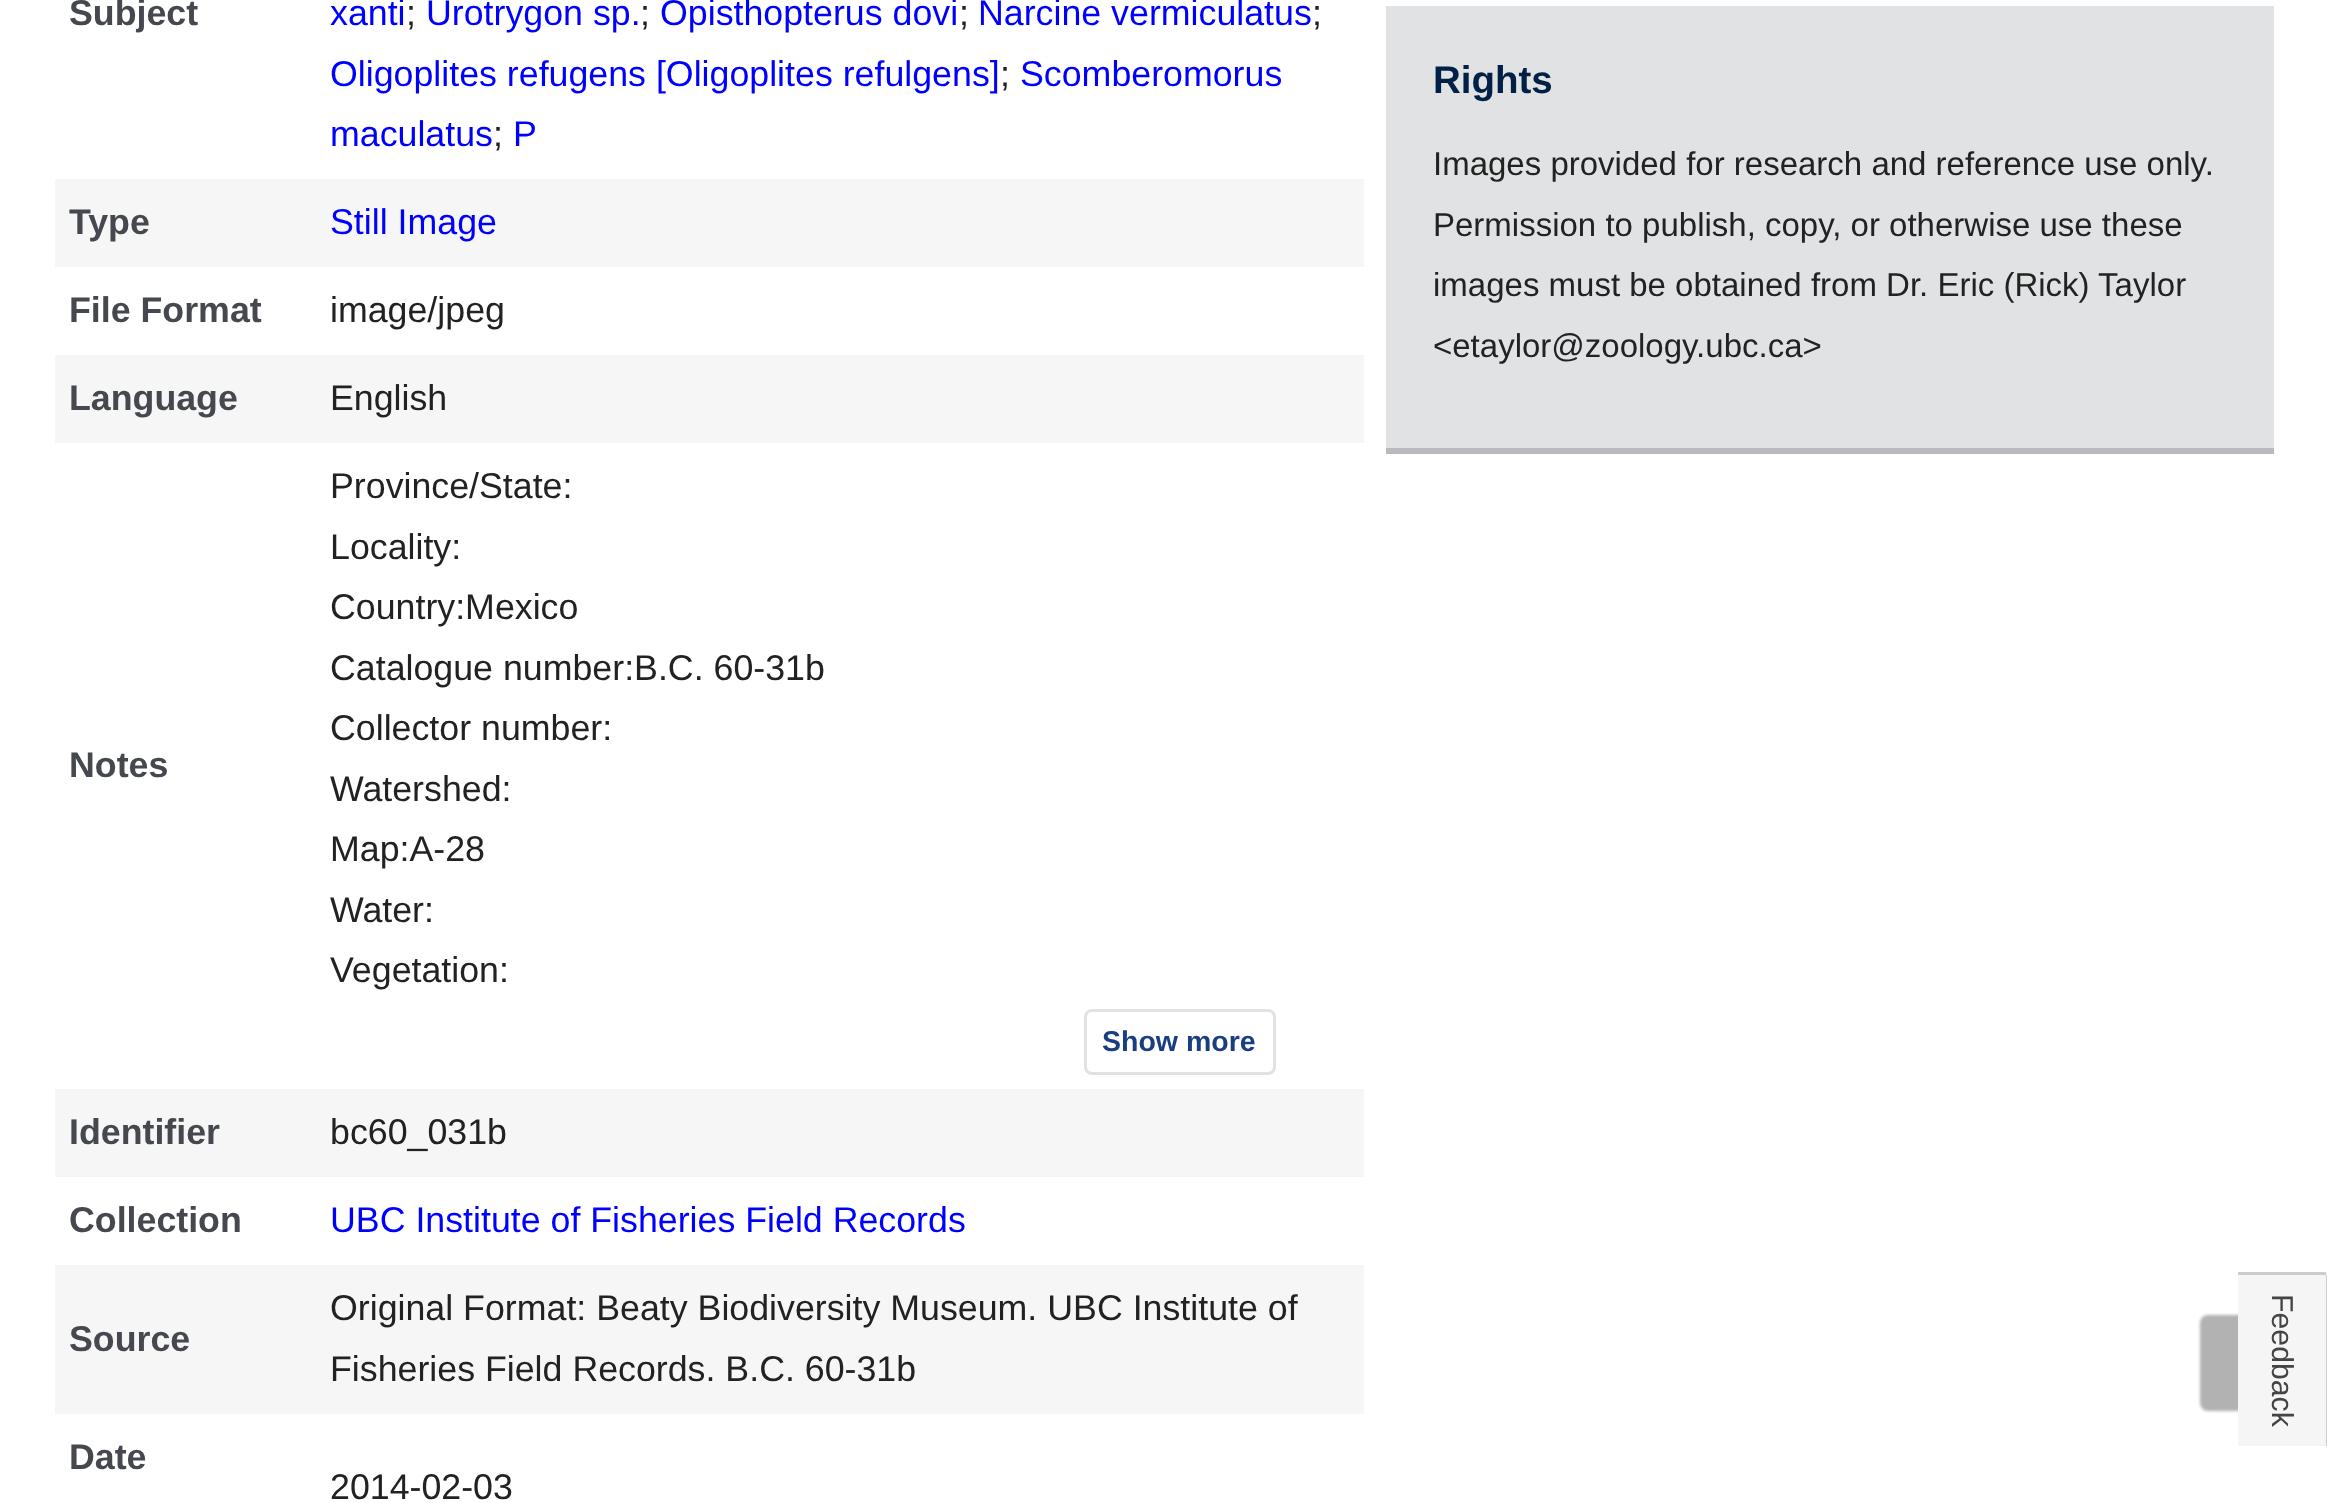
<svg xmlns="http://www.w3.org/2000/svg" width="2327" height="1503">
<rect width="100%" height="100%" fill="#fff"/>
<text x="69" y="25" style="font-family:Liberation Sans;font-size:35.75px;font-weight:bold;fill:#45484e">Subject</text>
<text x="330" y="25" style="font-family:Liberation Sans;font-size:35.75px;fill:#00f">xanti</text>
<text x="406" y="25" style="font-family:Liberation Sans;font-size:35.75px;fill:#222">;</text>
<text x="426" y="25" style="font-family:Liberation Sans;font-size:35.75px;fill:#00f">Urotrygon sp.</text>
<text x="640" y="25" style="font-family:Liberation Sans;font-size:35.75px;fill:#222">;</text>
<text x="660" y="25" style="font-family:Liberation Sans;font-size:35.75px;fill:#00f">Opisthopterus dovi</text>
<text x="959" y="25" style="font-family:Liberation Sans;font-size:35.75px;fill:#222">;</text>
<text x="978" y="25" style="font-family:Liberation Sans;font-size:35.75px;fill:#00f">Narcine vermiculatus</text>
<text x="1312" y="25" style="font-family:Liberation Sans;font-size:35.75px;fill:#222">;</text>
<text x="330" y="86" style="font-family:Liberation Sans;font-size:35.75px;fill:#00f">Oligoplites refugens [Oligoplites refulgens]</text>
<text x="1000" y="86" style="font-family:Liberation Sans;font-size:35.75px;fill:#222">;</text>
<text x="1020" y="86" style="font-family:Liberation Sans;font-size:35.75px;fill:#00f">Scomberomorus</text>
<text x="330" y="146" style="font-family:Liberation Sans;font-size:35.75px;fill:#00f">maculatus</text>
<text x="493" y="146" style="font-family:Liberation Sans;font-size:35.75px;fill:#222">;</text>
<text x="513" y="146" style="font-family:Liberation Sans;font-size:35.75px;fill:#00f">P</text>
<rect x="55" y="179" width="1309" height="88" fill="#f6f6f7"/>
<text x="69" y="234" style="font-family:Liberation Sans;font-size:35.75px;font-weight:bold;fill:#45484e">Type</text>
<text x="330" y="234" style="font-family:Liberation Sans;font-size:35.75px;fill:#00f">Still Image</text>
<text x="69" y="322" style="font-family:Liberation Sans;font-size:35.75px;font-weight:bold;fill:#45484e">File Format</text>
<text x="330" y="322" style="font-family:Liberation Sans;font-size:35.75px;fill:#222">image/jpeg</text>
<rect x="55" y="355" width="1309" height="88" fill="#f6f6f7"/>
<text x="69" y="410" style="font-family:Liberation Sans;font-size:35.75px;font-weight:bold;fill:#45484e">Language</text>
<text x="330" y="410" style="font-family:Liberation Sans;font-size:35.75px;fill:#222">English</text>
<text x="69" y="777" style="font-family:Liberation Sans;font-size:35.75px;font-weight:bold;fill:#45484e">Notes</text>
<text x="330" y="498" style="font-family:Liberation Sans;font-size:35.75px;fill:#222">Province/State:</text>
<text x="330" y="559" style="font-family:Liberation Sans;font-size:35.75px;fill:#222">Locality:</text>
<text x="330" y="619" style="font-family:Liberation Sans;font-size:35.75px;fill:#222">Country:Mexico</text>
<text x="330" y="680" style="font-family:Liberation Sans;font-size:35.75px;fill:#222">Catalogue number:B.C. 60-31b</text>
<text x="330" y="740" style="font-family:Liberation Sans;font-size:35.75px;fill:#222">Collector number:</text>
<text x="330" y="801" style="font-family:Liberation Sans;font-size:35.75px;fill:#222">Watershed:</text>
<text x="330" y="861" style="font-family:Liberation Sans;font-size:35.75px;fill:#222">Map:A-28</text>
<text x="330" y="922" style="font-family:Liberation Sans;font-size:35.75px;fill:#222">Water:</text>
<text x="330" y="982" style="font-family:Liberation Sans;font-size:35.75px;fill:#222">Vegetation:</text>
<rect x="1085.5" y="1010.5" width="189" height="63" rx="6.5" fill="none" stroke="#e1e2e4" stroke-width="3"/>
<text x="1102" y="1051" style="font-family:Liberation Sans;font-size:28.5px;font-weight:bold;fill:#1a3e82">Show more</text>
<rect x="55" y="1089" width="1309" height="88" fill="#f6f6f7"/>
<text x="69" y="1144" style="font-family:Liberation Sans;font-size:35.75px;font-weight:bold;fill:#45484e">Identifier</text>
<text x="330" y="1144" style="font-family:Liberation Sans;font-size:35.75px;fill:#222">bc60_031b</text>
<text x="69" y="1232" style="font-family:Liberation Sans;font-size:35.75px;font-weight:bold;fill:#45484e">Collection</text>
<text x="330" y="1232" style="font-family:Liberation Sans;font-size:35.75px;fill:#00f">UBC Institute of Fisheries Field Records</text>
<rect x="55" y="1265" width="1309" height="149" fill="#f6f6f7"/>
<text x="69" y="1351" style="font-family:Liberation Sans;font-size:35.75px;font-weight:bold;fill:#45484e">Source</text>
<text x="330" y="1320" style="font-family:Liberation Sans;font-size:35.75px;fill:#222">Original Format: Beaty Biodiversity Museum. UBC Institute of</text>
<text x="330" y="1381" style="font-family:Liberation Sans;font-size:35.75px;fill:#222">Fisheries Field Records. B.C. 60-31b</text>
<text x="69" y="1469" style="font-family:Liberation Sans;font-size:35.75px;font-weight:bold;fill:#45484e">Date</text>
<text x="330" y="1499" style="font-family:Liberation Sans;font-size:35.75px;fill:#222">2014-02-03</text>
<rect x="1386" y="6" width="888" height="442" fill="#e1e2e4"/>
<rect x="1386" y="448" width="888" height="6" fill="#b8bac0"/>
<text x="1433" y="93" style="font-family:Liberation Sans;font-size:38.5px;font-weight:bold;fill:#002145">Rights</text>
<text x="1433" y="175" style="font-family:Liberation Sans;font-size:33px;fill:#222">Images provided for research and reference use only.</text>
<text x="1433" y="236" style="font-family:Liberation Sans;font-size:33px;fill:#222">Permission to publish, copy, or otherwise use these</text>
<text x="1433" y="296" style="font-family:Liberation Sans;font-size:33px;fill:#222">images must be obtained from Dr. Eric (Rick) Taylor</text>
<text x="1433" y="357" style="font-family:Liberation Sans;font-size:33px;fill:#222">&lt;etaylor@zoology.ubc.ca&gt;</text>
<rect x="2200" y="1315" width="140" height="96" rx="8" fill="#0000004d" filter="blur(1.5px)"/>
<path d="M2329 1278v168h-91v-174h86c3 0 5 3 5 6z" fill="#f5f5f5"/>
<rect x="2326" y="1275" width="1" height="171" fill="#ccc"/>
<rect x="2238" y="1272" width="88" height="3" fill="#ccc"/>
<text x="2272" y="1294" transform="rotate(90 2272 1294)" style="font-family:Liberation Sans;font-size:30.25px;fill:#444">Feedback</text>
</svg>
